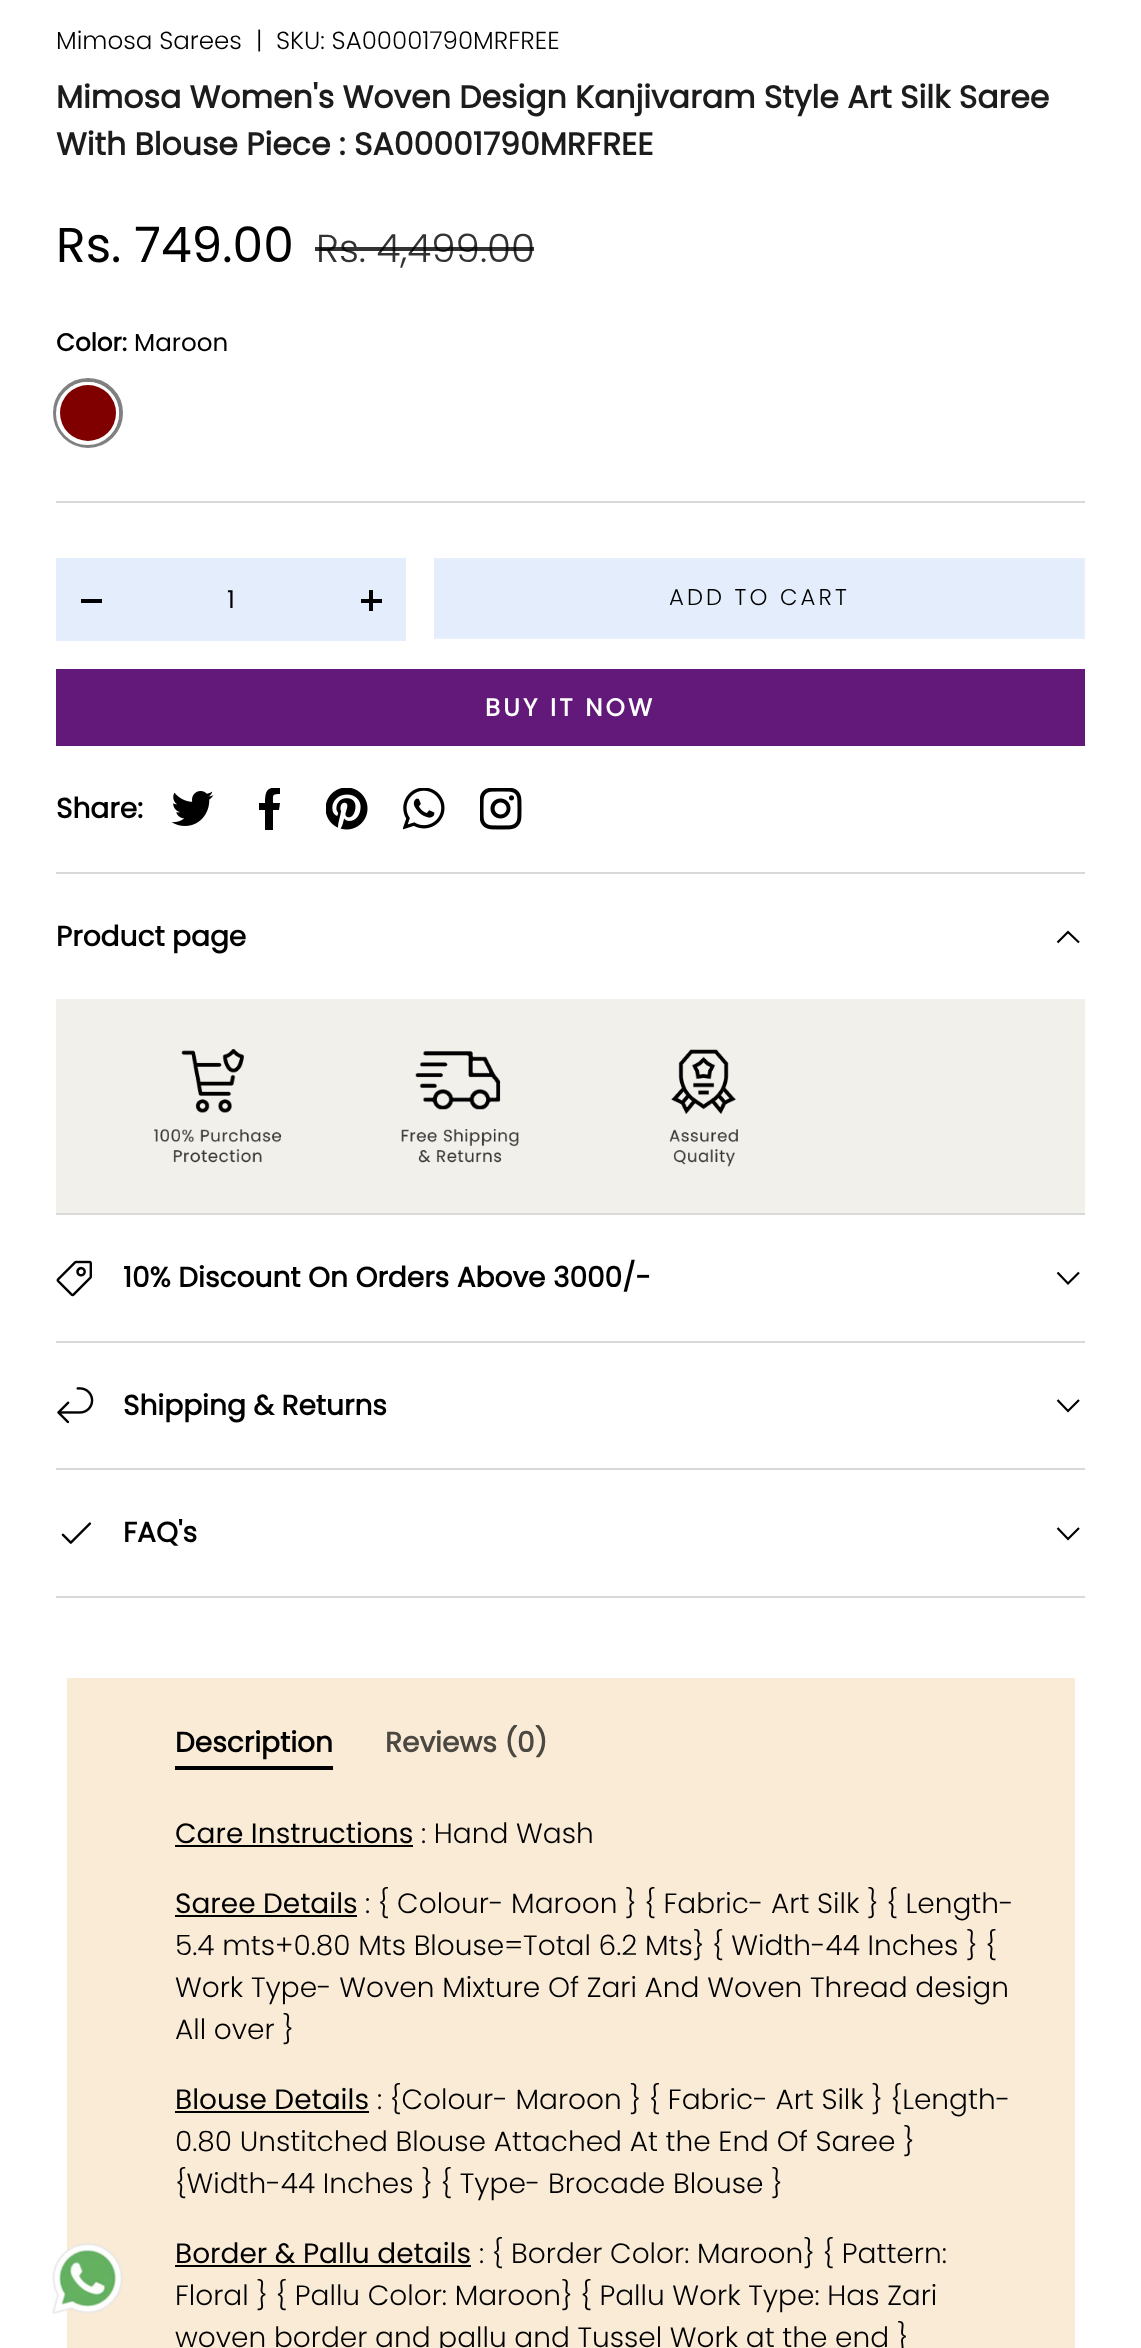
<svg xmlns="http://www.w3.org/2000/svg" width="1141" height="2348">
<defs>
<linearGradient id="g1" gradientUnits="userSpaceOnUse" x1="-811" y1="368" x2="1035" y2="829"><stop offset="0.6" stop-color="#d6dee9"/><stop offset="0.6" stop-color="#e3edfb"/><stop offset="1" stop-color="#e3edfb"/></linearGradient>
<linearGradient id="g2" gradientUnits="userSpaceOnUse" x1="-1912" y1="344" x2="1002" y2="1070"><stop offset="0.6" stop-color="#834198"/><stop offset="0.6" stop-color="#621979"/><stop offset="1" stop-color="#621979"/></linearGradient>
<clipPath id="clip1"><rect x="259" y="788" width="21" height="42"/></clipPath>
</defs>
<rect width="100%" height="100%" fill="#fff"/>
<text x="56" y="49" style="font-family:Poppins;font-size:24.6px;font-weight:300;fill:#000">Mimosa Sarees</text>
<text x="256" y="49" style="font-family:Poppins;font-size:24.6px;font-weight:300;fill:#000">|</text>
<text x="276" y="49" style="font-family:Poppins;font-size:24.6px;font-weight:300;fill:#000">SKU: SA00001790MRFREE</text>
<text x="56" y="108" style="font-family:Poppins;font-size:31.5px;font-weight:bold;fill:#1c1c1c">Mimosa Women's Woven Design Kanjivaram Style Art Silk Saree</text>
<text x="56" y="155" style="font-family:Poppins;font-size:31.5px;font-weight:bold;fill:#1c1c1c">With Blouse Piece : SA00001790MRFREE</text>
<text x="56" y="262" style="font-family:Poppins;font-size:48.75px;fill:#000">Rs. 749.00</text>
<text x="316" y="262" style="font-family:Poppins;font-size:39px;font-weight:300;fill:#333">Rs. 4,499.00</text>
<rect x="315" y="247" width="219" height="4" fill="#000000cc"/>
<text x="56" y="351" style="font-family:Poppins;font-size:24.6px;font-weight:bold;fill:#000">Color:</text>
<text x="134" y="351" style="font-family:Poppins;font-size:24.6px;fill:#000">Maroon</text>
<circle cx="88" cy="413" r="33" fill="none" stroke="#808080" stroke-width="4"/>
<circle cx="87.5" cy="413.5" r="29.5" fill="none" stroke="#fff" stroke-width="4"/>
<circle cx="88" cy="413" r="28" fill="#800000"/>
<rect x="56" y="501" width="1029" height="2" fill="#d9d9d9"/>
<rect x="56" y="558" width="350" height="83" fill="#e3edfb"/>
<rect x="81" y="599" width="21" height="4" fill="#000"/>
<text x="227" y="608" style="font-family:Poppins;font-size:24.6px;fill:#000">1</text>
<rect x="361" y="599" width="21" height="4" fill="#000"/>
<rect x="369" y="590" width="4" height="21" fill="#000"/>
<rect x="434" y="558" width="651" height="81" fill="#e6effb"/>
<rect x="434" y="560" width="649" height="77" fill="url(#g1)"/>
<text x="669" y="605" style="font-family:Poppins;font-size:22.75px;font-weight:300;letter-spacing:3.1px;fill:#000">ADD TO CART</text>
<rect x="58" y="671" width="1025" height="73" fill="url(#g2)"/>
<rect x="57" y="670" width="1027" height="75" fill="none" stroke="#621979" stroke-width="2"/>
<text x="485" y="716" style="font-family:Poppins;font-size:24.6px;font-weight:bold;letter-spacing:3.1px;fill:#fff">BUY IT NOW</text>
<text x="56" y="818" style="font-family:Poppins;font-size:28px;font-weight:bold;fill:#000">Share:</text>
<image x="172" y="791" width="42" height="35" href="media/1.png"/>
<g clip-path="url(#clip1)">
<path d="M273 810h6l1-7h-7c0-8-1-9 7-9v-6c-13-2-15 3-15 15h-6v7h6v20h8z" fill="#000"/>
</g>
<image x="326" y="788" width="42" height="42" href="media/2.png"/>
<image x="403" y="788" width="42" height="42" href="media/3.png"/>
<image x="480" y="788" width="42" height="42" href="media/4.png"/>
<rect x="56" y="872" width="1029" height="2" fill="#d9d9d9"/>
<rect x="56" y="1213" width="1029" height="2" fill="#d9d9d9"/>
<text x="56" y="946" style="font-family:Poppins;font-size:28px;font-weight:bold;fill:#000">Product page</text>
<path d="M1079 942.5l-11-10.5l-10.5 10.5" fill="none" stroke="#000" stroke-width="2.2"/>
<rect x="56" y="999" width="1029" height="214" fill="#f2f0ea"/>
<image x="154" y="1049" width="128" height="114" href="media/5.png"/>
<image x="401" y="1051" width="118" height="112" href="media/6.png"/>
<image x="669" y="1049" width="69" height="118" href="media/7.png"/>
<rect x="56" y="1341" width="1029" height="2" fill="#d9d9d9"/>
<image x="56" y="1260" width="36" height="37" href="media/8.png"/>
<text x="123" y="1287" style="font-family:Poppins;font-size:28px;font-weight:bold;fill:#000">10% Discount On Orders Above 3000/-</text>
<path d="M1079 1272.5l-11 11l-10.5-11" fill="none" stroke="#000" stroke-width="2.2"/>
<rect x="56" y="1468" width="1029" height="2" fill="#d9d9d9"/>
<image x="57" y="1387" width="37" height="37" href="media/9.png"/>
<text x="123" y="1415" style="font-family:Poppins;font-size:28px;font-weight:bold;fill:#000">Shipping &amp; Returns</text>
<path d="M1079 1400l-11 11l-10.5-11" fill="none" stroke="#000" stroke-width="2.2"/>
<rect x="56" y="1596" width="1029" height="2" fill="#d9d9d9"/>
<image x="61" y="1522" width="31" height="22" href="media/10.png"/>
<text x="123" y="1542" style="font-family:Poppins;font-size:28px;font-weight:bold;fill:#000">FAQ's</text>
<path d="M1079 1528l-11 11l-10.5-11" fill="none" stroke="#000" stroke-width="2.2"/>
<rect x="67" y="1678" width="1008" height="670" fill="#faebd7"/>
<text x="175" y="1752" style="font-family:Poppins;font-size:28px;font-weight:bold;fill:#000">Description</text>
<rect x="175" y="1766" width="158" height="4" fill="#000"/>
<text x="385" y="1752" style="font-family:Poppins;font-size:28px;font-weight:bold;fill:#4b4741">Reviews (0)</text>
<text x="175" y="1843" style="font-family:Poppins;font-size:28px;fill:#000">Care Instructions</text>
<rect x="175" y="1845" width="238" height="2" fill="#000"/>
<text x="421" y="1843" style="font-family:Poppins;font-size:28px;font-weight:300;fill:#000">: Hand Wash</text>
<text x="175" y="1913" style="font-family:Poppins;font-size:28px;fill:#000">Saree Details</text>
<rect x="175" y="1915" width="182" height="2" fill="#000"/>
<text x="365" y="1913" style="font-family:Poppins;font-size:28px;font-weight:300;fill:#000">: { Colour- Maroon } { Fabric- Art Silk } { Length-</text>
<text x="175" y="1955" style="font-family:Poppins;font-size:28px;font-weight:300;fill:#000">5.4 mts+0.80 Mts Blouse=Total 6.2 Mts} { Width-44 Inches } {</text>
<text x="175" y="1997" style="font-family:Poppins;font-size:28px;font-weight:300;fill:#000">Work Type- Woven Mixture Of Zari And Woven Thread design</text>
<text x="175" y="2039" style="font-family:Poppins;font-size:28px;font-weight:300;fill:#000">All over }</text>
<text x="175" y="2109" style="font-family:Poppins;font-size:28px;fill:#000">Blouse Details</text>
<rect x="175" y="2111" width="194" height="2" fill="#000"/>
<text x="377" y="2109" style="font-family:Poppins;font-size:28px;font-weight:300;fill:#000">: {Colour- Maroon } { Fabric- Art Silk } {Length-</text>
<text x="175" y="2151" style="font-family:Poppins;font-size:28px;font-weight:300;fill:#000">0.80 Unstitched Blouse Attached At the End Of Saree }</text>
<text x="175" y="2193" style="font-family:Poppins;font-size:28px;font-weight:300;fill:#000">{Width-44 Inches } { Type- Brocade Blouse }</text>
<text x="175" y="2263" style="font-family:Poppins;font-size:28px;fill:#000">Border &amp; Pallu details</text>
<rect x="175" y="2265" width="296" height="2" fill="#000"/>
<text x="479" y="2263" style="font-family:Poppins;font-size:28px;font-weight:300;fill:#000">: { Border Color: Maroon} { Pattern:</text>
<text x="175" y="2305" style="font-family:Poppins;font-size:28px;font-weight:300;fill:#000">Floral } { Pallu Color: Maroon} { Pallu Work Type: Has Zari</text>
<text x="175" y="2347" style="font-family:Poppins;font-size:28px;font-weight:300;fill:#000">woven border and pallu and Tussel Work at the end }</text>
<image x="52" y="2243" width="71" height="71" href="media/11.png"/>
</svg>
